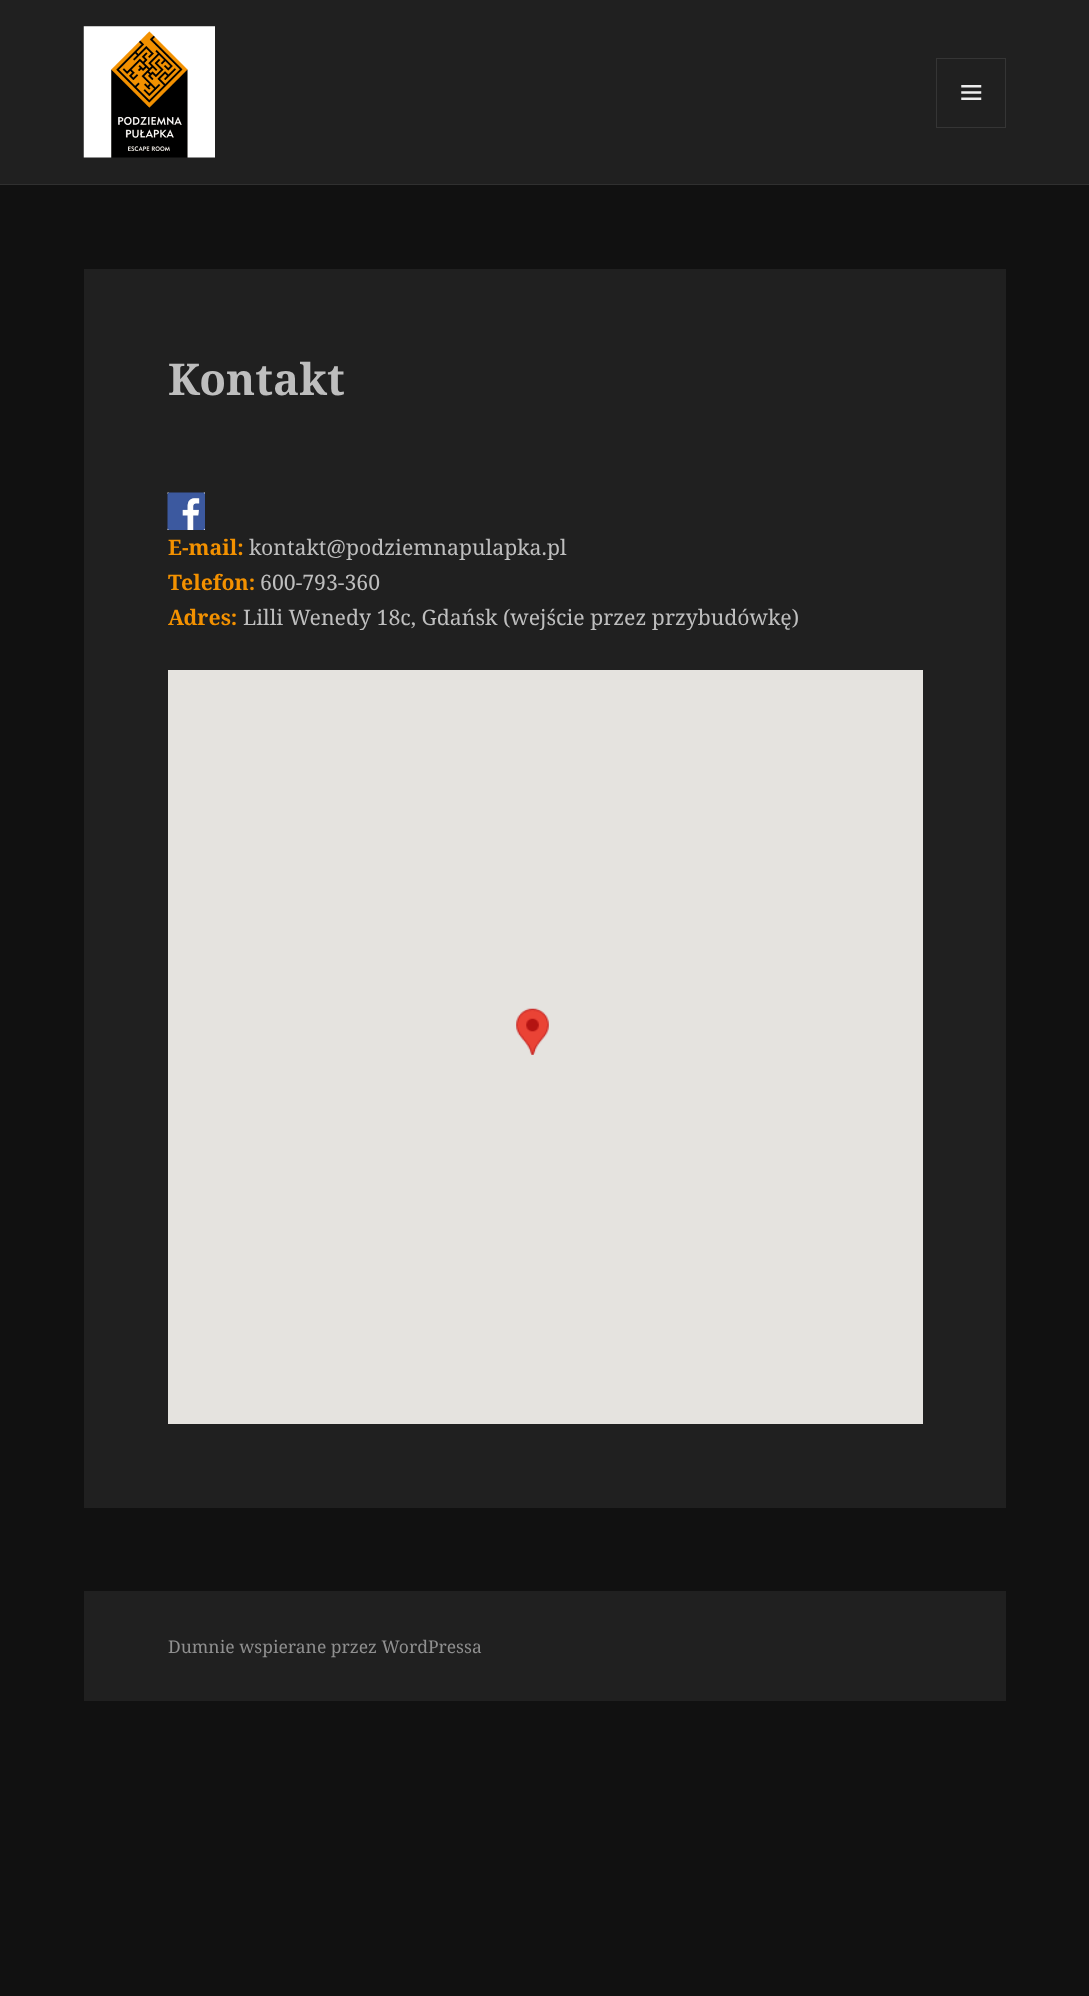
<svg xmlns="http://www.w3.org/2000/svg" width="1089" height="1996">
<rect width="100%" height="100%" fill="#111"/>
<rect width="1089" height="184" fill="#202020"/>
<rect y="184" width="1089" height="1" fill="#303030"/>
<image x="83" y="26" width="132" height="132" href="media/1.png"/>
<rect x="936.5" y="58.5" width="69" height="69" fill="none" stroke="#353535"/>
<image x="961" y="85" width="21" height="15" href="media/2.png"/>
<rect x="84" y="269" width="922" height="1239" fill="#202020"/>
<text x="168" y="395" style="font-family:Noto Serif;font-size:43.75px;font-weight:bold;fill:#bebebe">Kontakt</text>
<image x="167" y="492" width="38" height="38" href="media/3.png"/>
<text x="168" y="555" style="font-family:Noto Serif;font-size:21.25px;font-weight:bold;fill:#f39100">E-mail:</text>
<text x="249" y="555" style="font-family:Noto Serif;font-size:21.25px;fill:#bebebe">kontakt@podziemnapulapka.pl</text>
<text x="168" y="590" style="font-family:Noto Serif;font-size:21.25px;font-weight:bold;fill:#f39100">Telefon:</text>
<text x="260" y="590" style="font-family:Noto Serif;font-size:21.25px;fill:#bebebe">600-793-360</text>
<text x="168" y="625" style="font-family:Noto Serif;font-size:21.25px;font-weight:bold;fill:#f39100">Adres:</text>
<text x="243" y="625" style="font-family:Noto Serif;font-size:21.25px;fill:#bebebe">Lilli Wenedy 18c, Gdańsk (wejście przez przybudówkę)</text>
<rect x="168" y="670" width="755" height="754" fill="#e5e3df"/>
<image x="516" y="1008" width="33" height="47" href="media/4.png"/>
<rect x="84" y="1591" width="922" height="110" fill="#202020"/>
<text x="168" y="1653" style="font-family:Noto Serif;font-size:17.5px;fill:#8f8f8f">Dumnie wspierane przez WordPressa</text>
</svg>
